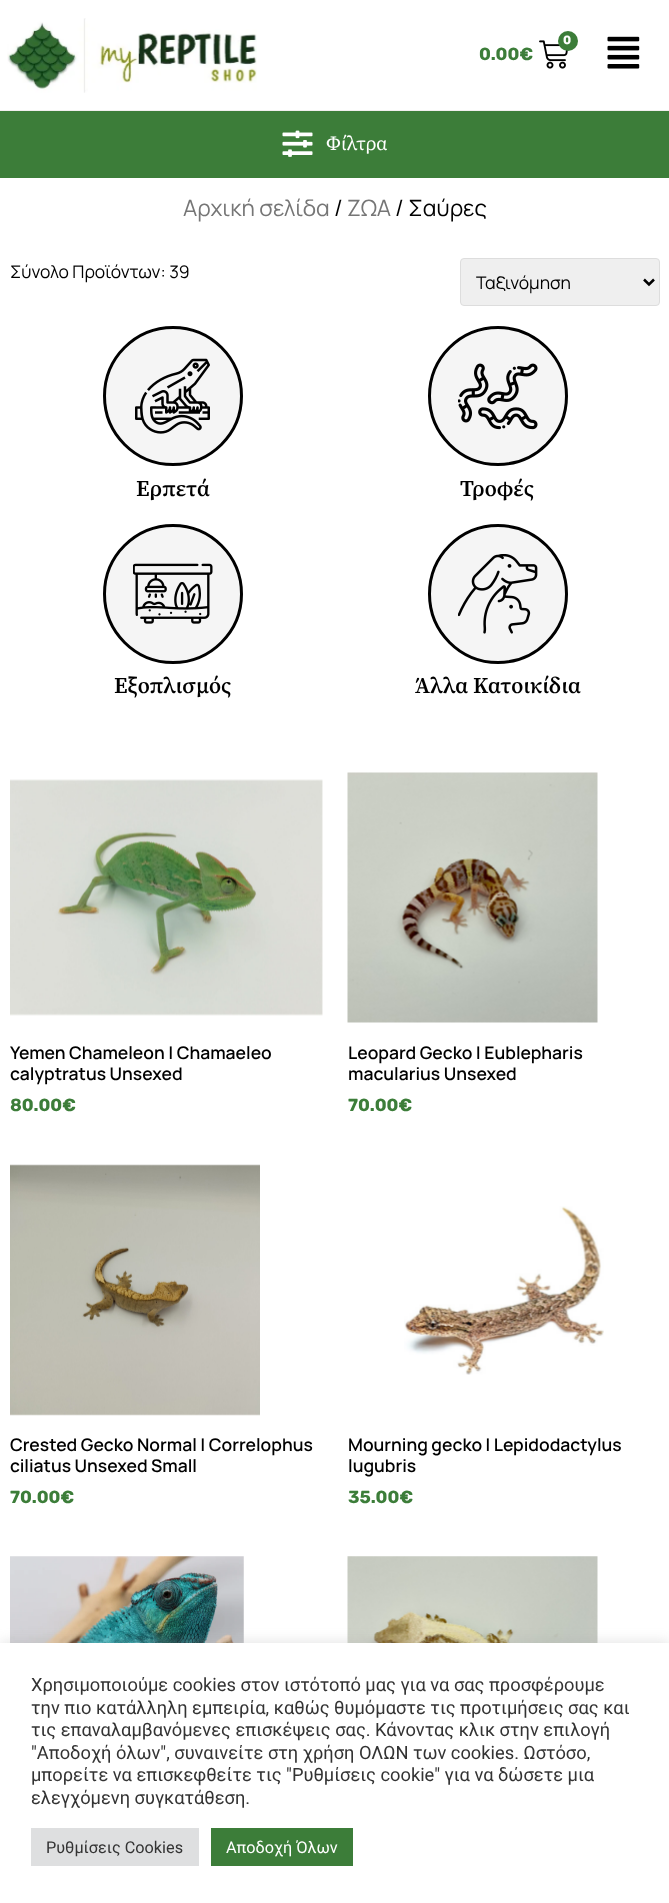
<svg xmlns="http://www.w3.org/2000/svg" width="669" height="1903">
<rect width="100%" height="100%" fill="#fff"/>
<rect y="110" width="669" height="1" fill="#f2eeee"/>
<image x="7" y="18" width="250" height="75" href="media/1.png"/>
<image x="539" y="40" width="29" height="29" href="media/2.png"/>
<circle cx="568" cy="41" r="10" fill="#3c7d39"/>
<text x="563" y="44" style="font-family:Rubik;font-size:12px;font-weight:bold;fill:#fff">0</text>
<text x="479" y="60" style="font-family:Rubik;font-size:17.5px;font-weight:bold;fill:#3c7d39">0.00€</text>
<image x="607" y="36" width="33" height="33" href="media/3.png"/>
<rect y="111" width="669" height="67" fill="#3c7d39"/>
<image x="282" y="130" width="31" height="27" href="media/4.png"/>
<text x="326" y="150" style="font-family:Source Serif Pro;font-size:20px;fill:#fff">Φίλτρα</text>
<text x="183" y="216" style="font-family:Manrope;font-size:22.5px;fill:#767676">Αρχική σελίδα</text>
<text x="334" y="216" style="font-family:Manrope;font-size:22.5px;fill:#000">/</text>
<text x="347" y="216" style="font-family:Manrope;font-size:22.5px;fill:#767676">ΖΩΑ</text>
<text x="395" y="216" style="font-family:Manrope;font-size:22.5px;fill:#000">/ Σαύρες</text>
<text x="10" y="278" style="font-family:Manrope;font-size:17.5px;fill:#000">Σύνολο Προϊόντων: 39</text>
<rect x="460.5" y="258.5" width="199" height="47" rx="3.5" fill="#efefef" stroke="#ddd"/>
<path d="M644 279.5l5 5l5-5" fill="none" stroke="#000" stroke-width="2.5"/>
<text x="476" y="289" style="font-family:Manrope;font-size:17.5px;fill:#000">Ταξινόμηση</text>
<circle cx="173" cy="396" r="68.5" fill="#f5f5f5" stroke="#000" stroke-width="3"/>
<image x="135" y="358" width="75" height="76" href="media/5.png"/>
<text x="136" y="496" style="font-family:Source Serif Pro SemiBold;font-size:22.5px;font-weight:600;fill:#000">Ερπετά</text>
<circle cx="498" cy="396" r="68.5" fill="#f5f5f5" stroke="#000" stroke-width="3"/>
<image x="458" y="363" width="80" height="67" href="media/6.png"/>
<text x="460" y="496" style="font-family:Source Serif Pro SemiBold;font-size:22.5px;font-weight:600;fill:#000">Τροφές</text>
<circle cx="173" cy="594" r="68.5" fill="#f5f5f5" stroke="#000" stroke-width="3"/>
<image x="133" y="563" width="80" height="61" href="media/7.png"/>
<text x="114" y="693" style="font-family:Source Serif Pro SemiBold;font-size:22.5px;font-weight:600;fill:#000">Εξοπλισμός</text>
<circle cx="498" cy="594" r="68.5" fill="#f5f5f5" stroke="#000" stroke-width="3"/>
<image x="458" y="554" width="80" height="80" href="media/8.png"/>
<text x="415" y="693" style="font-family:Source Serif Pro SemiBold;font-size:22.5px;font-weight:600;fill:#000">Άλλα Κατοικίδια</text>
<image x="10" y="779" width="313" height="237" href="media/9.png"/>
<text x="10" y="1059" style="font-family:Manrope;font-size:17.5px;font-weight:600;fill:#000">Yemen Chameleon | Chamaeleo</text>
<text x="10" y="1080" style="font-family:Manrope;font-size:17.5px;font-weight:600;fill:#000">calyptratus Unsexed</text>
<text x="10" y="1111" style="font-family:Rubik;font-size:17.5px;font-weight:bold;fill:#3c7d39">80.00€</text>
<image x="347" y="772" width="251" height="251" href="media/10.png"/>
<text x="348" y="1059" style="font-family:Manrope;font-size:17.5px;font-weight:600;fill:#000">Leopard Gecko | Eublepharis</text>
<text x="348" y="1080" style="font-family:Manrope;font-size:17.5px;font-weight:600;fill:#000">macularius Unsexed</text>
<text x="348" y="1111" style="font-family:Rubik;font-size:17.5px;font-weight:bold;fill:#3c7d39">70.00€</text>
<image x="10" y="1164" width="250" height="252" href="media/11.png"/>
<text x="10" y="1451" style="font-family:Manrope;font-size:17.5px;font-weight:600;fill:#000">Crested Gecko Normal | Correlophus</text>
<text x="10" y="1472" style="font-family:Manrope;font-size:17.5px;font-weight:600;fill:#000">ciliatus Unsexed Small</text>
<text x="10" y="1503" style="font-family:Rubik;font-size:17.5px;font-weight:bold;fill:#3c7d39">70.00€</text>
<image x="404" y="1206" width="200" height="169" href="media/12.png"/>
<text x="348" y="1451" style="font-family:Manrope;font-size:17.5px;font-weight:600;fill:#000">Mourning gecko I Lepidodactylus</text>
<text x="348" y="1472" style="font-family:Manrope;font-size:17.5px;font-weight:600;fill:#000">lugubris</text>
<text x="348" y="1503" style="font-family:Rubik;font-size:17.5px;font-weight:bold;fill:#3c7d39">35.00€</text>
<image x="10" y="1556" width="234" height="87" href="media/13.png"/>
<image x="347" y="1556" width="251" height="87" href="media/14.png"/>
<rect y="1641" width="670" height="262" fill="#acabab4d" filter="blur(6px)"/>
<rect y="1643" width="669" height="260" fill="#fff"/>
<text x="31" y="1691" style="font-family:Roboto;font-size:18.3px;fill:#333">Χρησιμοποιούμε cookies στον ιστότοπό μας για να σας προσφέρουμε</text>
<text x="31" y="1714" style="font-family:Roboto;font-size:18.3px;fill:#333">την πιο κατάλληλη εμπειρία, καθώς θυμόμαστε τις προτιμήσεις σας και</text>
<text x="31" y="1736" style="font-family:Roboto;font-size:18.3px;fill:#333">τις επαναλαμβανόμενες επισκέψεις σας. Κάνοντας κλικ στην επιλογή</text>
<text x="31" y="1759" style="font-family:Roboto;font-size:18.3px;fill:#333">"Αποδοχή όλων", συναινείτε στη χρήση ΟΛΩΝ των cookies. Ωστόσο,</text>
<text x="31" y="1781" style="font-family:Roboto;font-size:18.3px;fill:#333">μπορείτε να επισκεφθείτε τις "Ρυθμίσεις cookie" για να δώσετε μια</text>
<text x="31" y="1804" style="font-family:Roboto;font-size:18.3px;fill:#333">ελεγχόμενη συγκατάθεση.</text>
<rect x="31" y="1828" width="168" height="38" fill="#dedfe0"/>
<text x="46" y="1853" style="font-family:Roboto;font-size:16.25px;fill:#333">Ρυθμίσεις Cookies</text>
<rect x="211" y="1828" width="142" height="38" fill="#3c7d39"/>
<text x="226" y="1853" style="font-family:Roboto;font-size:16.25px;fill:#fff">Αποδοχή Όλων</text>
</svg>
